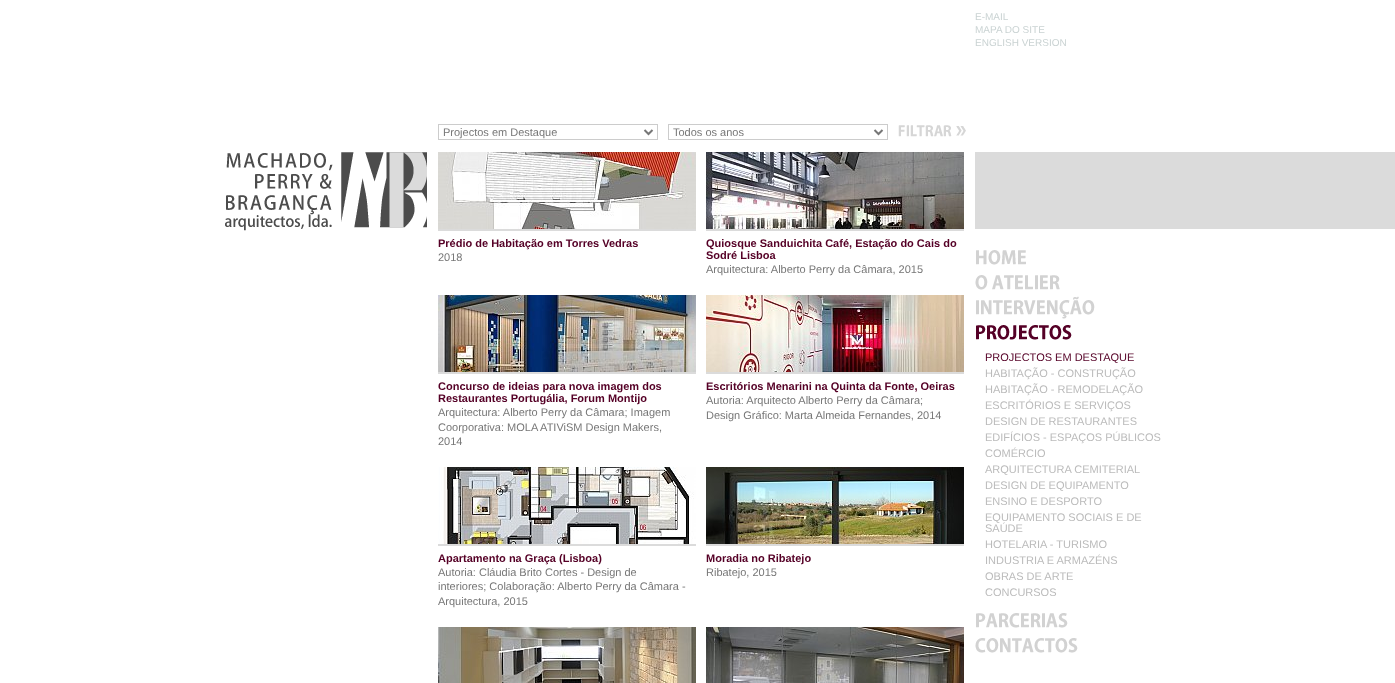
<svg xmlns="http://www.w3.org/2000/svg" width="1395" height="683">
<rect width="100%" height="100%" fill="#fff"/>
<image x="225" y="152" width="202" height="79" href="media/1.png"/>
<rect x="438.5" y="124.5" width="219" height="15" fill="none" stroke="#ccc"/>
<path d="M644.5 130l4 4l4-4" fill="none" stroke="#777" stroke-width="2"/>
<text x="443" y="136" style="font-family:Liberation Sans;font-size:11px;fill:#777">Projectos em Destaque</text>
<rect x="668.5" y="124.5" width="219" height="15" fill="none" stroke="#ccc"/>
<path d="M874.5 130l4 4l4-4" fill="none" stroke="#777" stroke-width="2"/>
<text x="673" y="136" style="font-family:Liberation Sans;font-size:11px;fill:#777">Todos os anos</text>
<image x="898" y="125" width="68" height="12" href="media/2.png"/>
<rect x="438" y="229" width="258" height="2" fill="#dbdbdb"/>
<image x="438" y="152" width="258" height="77" href="media/3.png"/>
<text x="438" y="247" style="font-family:Liberation Sans;font-size:11px;font-weight:bold;fill:#550026">Prédio de Habitação em Torres Vedras</text>
<text x="438" y="261" style="font-family:Liberation Sans;font-size:11px;fill:#777">2018</text>
<rect x="706" y="229" width="258" height="2" fill="#dbdbdb"/>
<image x="706" y="152" width="258" height="77" href="media/4.png"/>
<text x="706" y="247" style="font-family:Liberation Sans;font-size:11px;font-weight:bold;fill:#550026">Quiosque Sanduichita Café, Estação do Cais do</text>
<text x="706" y="259" style="font-family:Liberation Sans;font-size:11px;font-weight:bold;fill:#550026">Sodré Lisboa</text>
<text x="706" y="273" style="font-family:Liberation Sans;font-size:11px;fill:#777">Arquitectura: Alberto Perry da Câmara, 2015</text>
<rect x="438" y="372" width="258" height="2" fill="#dbdbdb"/>
<image x="438" y="295" width="258" height="77" href="media/5.png"/>
<text x="438" y="390" style="font-family:Liberation Sans;font-size:11px;font-weight:bold;fill:#550026">Concurso de ideias para nova imagem dos</text>
<text x="438" y="402" style="font-family:Liberation Sans;font-size:11px;font-weight:bold;fill:#550026">Restaurantes Portugália, Forum Montijo</text>
<text x="438" y="416" style="font-family:Liberation Sans;font-size:11px;fill:#777">Arquitectura: Alberto Perry da Câmara; Imagem</text>
<text x="438" y="431" style="font-family:Liberation Sans;font-size:11px;fill:#777">Coorporativa: MOLA ATIViSM Design Makers,</text>
<text x="438" y="445" style="font-family:Liberation Sans;font-size:11px;fill:#777">2014</text>
<rect x="706" y="372" width="258" height="2" fill="#dbdbdb"/>
<image x="706" y="295" width="258" height="77" href="media/6.png"/>
<text x="706" y="390" style="font-family:Liberation Sans;font-size:11px;font-weight:bold;fill:#550026">Escritórios Menarini na Quinta da Fonte, Oeiras</text>
<text x="706" y="404" style="font-family:Liberation Sans;font-size:11px;fill:#777">Autoria: Arquitecto Alberto Perry da Câmara;</text>
<text x="706" y="419" style="font-family:Liberation Sans;font-size:11px;fill:#777">Design Gráfico: Marta Almeida Fernandes, 2014</text>
<rect x="438" y="544" width="258" height="2" fill="#dbdbdb"/>
<image x="438" y="467" width="258" height="77" href="media/7.png"/>
<text x="438" y="562" style="font-family:Liberation Sans;font-size:11px;font-weight:bold;fill:#550026">Apartamento na Graça (Lisboa)</text>
<text x="438" y="576" style="font-family:Liberation Sans;font-size:11px;fill:#777">Autoria: Cláudia Brito Cortes - Design de</text>
<text x="438" y="590" style="font-family:Liberation Sans;font-size:11px;fill:#777">interiores; Colaboração: Alberto Perry da Câmara -</text>
<text x="438" y="605" style="font-family:Liberation Sans;font-size:11px;fill:#777">Arquitectura, 2015</text>
<rect x="706" y="544" width="258" height="2" fill="#dbdbdb"/>
<image x="706" y="467" width="258" height="77" href="media/8.png"/>
<text x="706" y="562" style="font-family:Liberation Sans;font-size:11px;font-weight:bold;fill:#550026">Moradia no Ribatejo</text>
<text x="706" y="576" style="font-family:Liberation Sans;font-size:11px;fill:#777">Ribatejo, 2015</text>
<image x="438" y="627" width="258" height="56" href="media/9.png"/>
<image x="706" y="627" width="258" height="56" href="media/10.png"/>
<text x="975" y="20" style="font-family:Liberation Sans;font-size:10px;fill:#cad3d3">E-MAIL</text>
<text x="975" y="33" style="font-family:Liberation Sans;font-size:10px;fill:#cad3d3">MAPA DO SITE</text>
<text x="975" y="46" style="font-family:Liberation Sans;font-size:10px;fill:#cad3d3">ENGLISH VERSION</text>
<image x="976" y="250" width="50" height="15" href="media/11.png"/>
<image x="975" y="275" width="85" height="15" href="media/12.png"/>
<image x="976" y="296" width="119" height="23" href="media/13.png"/>
<image x="976" y="325" width="96" height="15" href="media/14.png"/>
<text x="985" y="361" style="font-family:Liberation Sans;font-size:11px;fill:#550026">PROJECTOS EM DESTAQUE</text>
<text x="985" y="377" style="font-family:Liberation Sans;font-size:11px;fill:#bbb">HABITAÇÃO - CONSTRUÇÃO</text>
<text x="985" y="393" style="font-family:Liberation Sans;font-size:11px;fill:#bbb">HABITAÇÃO - REMODELAÇÃO</text>
<text x="985" y="409" style="font-family:Liberation Sans;font-size:11px;fill:#bbb">ESCRITÓRIOS E SERVIÇOS</text>
<text x="985" y="425" style="font-family:Liberation Sans;font-size:11px;fill:#bbb">DESIGN DE RESTAURANTES</text>
<text x="985" y="441" style="font-family:Liberation Sans;font-size:11px;fill:#bbb">EDIFÍCIOS - ESPAÇOS PÚBLICOS</text>
<text x="985" y="457" style="font-family:Liberation Sans;font-size:11px;fill:#bbb">COMÉRCIO</text>
<text x="985" y="473" style="font-family:Liberation Sans;font-size:11px;fill:#bbb">ARQUITECTURA CEMITERIAL</text>
<text x="985" y="489" style="font-family:Liberation Sans;font-size:11px;fill:#bbb">DESIGN DE EQUIPAMENTO</text>
<text x="985" y="505" style="font-family:Liberation Sans;font-size:11px;fill:#bbb">ENSINO E DESPORTO</text>
<text x="985" y="521" style="font-family:Liberation Sans;font-size:11px;fill:#bbb">EQUIPAMENTO SOCIAIS E DE</text>
<text x="985" y="532" style="font-family:Liberation Sans;font-size:11px;fill:#bbb">SAÚDE</text>
<text x="985" y="548" style="font-family:Liberation Sans;font-size:11px;fill:#bbb">HOTELARIA - TURISMO</text>
<text x="985" y="564" style="font-family:Liberation Sans;font-size:11px;fill:#bbb">INDUSTRIA E ARMAZÉNS</text>
<text x="985" y="580" style="font-family:Liberation Sans;font-size:11px;fill:#bbb">OBRAS DE ARTE</text>
<text x="985" y="596" style="font-family:Liberation Sans;font-size:11px;fill:#bbb">CONCURSOS</text>
<image x="976" y="613" width="92" height="15" href="media/15.png"/>
<image x="975" y="638" width="103" height="15" href="media/16.png"/>
<rect x="975" y="152" width="420" height="77" fill="#dbdbdb"/>
</svg>
